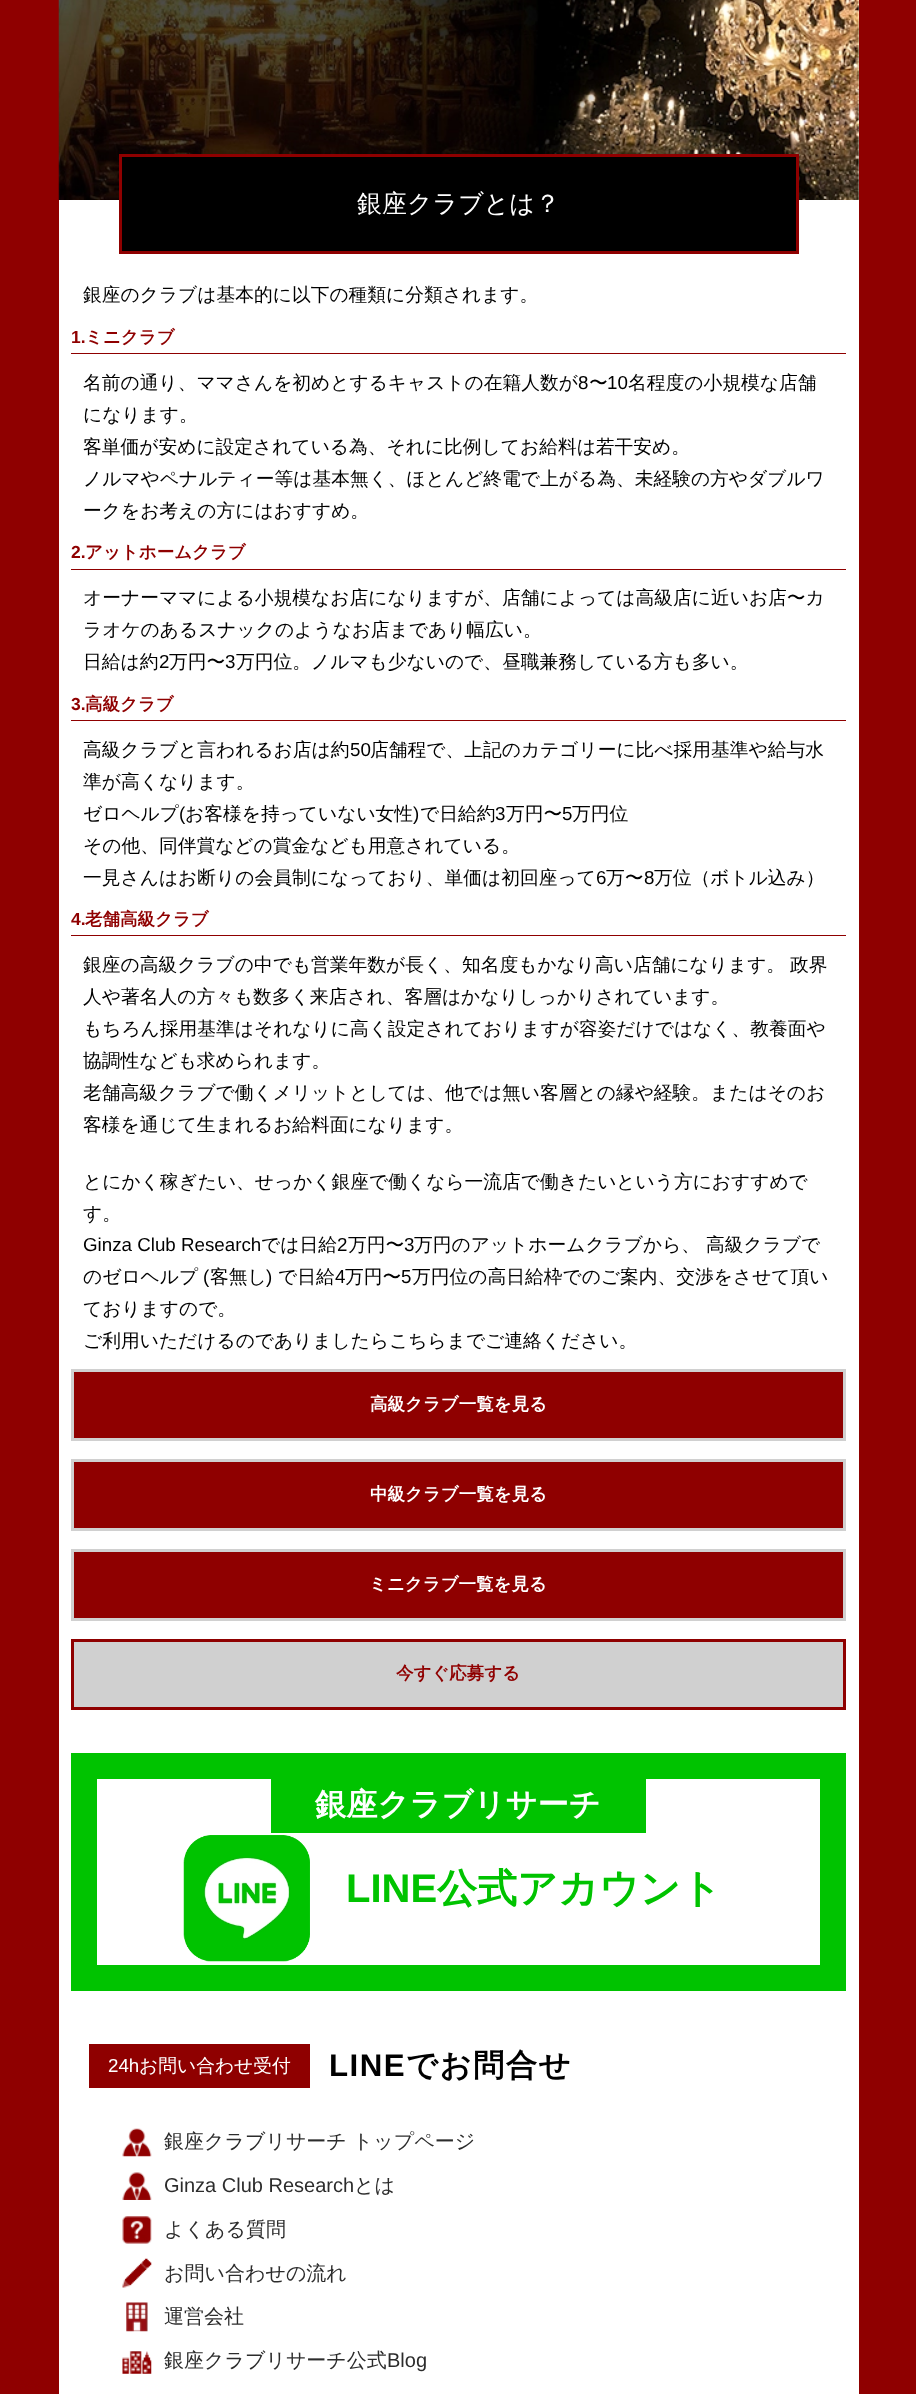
<svg xmlns="http://www.w3.org/2000/svg" width="916" height="2394">
<rect width="100%" height="100%" fill="#8f0000"/>
<rect x="59" width="800" height="2394" fill="#fff"/>
<image x="58" y="0" width="801" height="200" href="media/1.png"/>
<rect x="120.5" y="155.5" width="677" height="97" fill="#000" stroke="#8f0000" stroke-width="3"/>
<text x="357" y="212" style="font-family:WenQuanYi Zen Hei;font-size:25px;font-weight:500;fill:#fff">銀座クラブとは？</text>
<text x="83" y="301" style="font-family:WenQuanYi Zen Hei;font-size:18.75px;font-weight:500;fill:#000">銀座のクラブは基本的に以下の種類に分類されます。</text>
<rect x="71" y="353" width="775" height="1" fill="#8f0000"/>
<text x="71" y="343" style="font-family:Liberation Sans;font-size:17.5px;font-weight:bold;fill:#8f0000">1.</text>
<text x="85" y="343" style="font-family:WenQuanYi Zen Hei;font-size:17.5px;font-weight:bold;fill:#8f0000">ミニクラブ</text>
<text x="83" y="389" style="font-family:WenQuanYi Zen Hei;font-size:18.75px;font-weight:500;fill:#000">名前の通り、ママさんを初めとするキャストの在籍人数が</text>
<text x="578" y="389" style="font-family:Liberation Sans;font-size:18.75px;fill:#000">8</text>
<text x="589" y="389" style="font-family:WenQuanYi Zen Hei;font-size:18.75px;font-weight:500;fill:#000">〜</text>
<text x="607" y="389" style="font-family:Liberation Sans;font-size:18.75px;fill:#000">10</text>
<text x="628" y="389" style="font-family:WenQuanYi Zen Hei;font-size:18.75px;font-weight:500;fill:#000">名程度の小規模な店舗</text>
<text x="83" y="421" style="font-family:WenQuanYi Zen Hei;font-size:18.75px;font-weight:500;fill:#000">になります。</text>
<text x="83" y="453" style="font-family:WenQuanYi Zen Hei;font-size:18.75px;font-weight:500;fill:#000">客単価が安めに設定されている為、それに比例してお給料は若干安め。</text>
<text x="83" y="485" style="font-family:WenQuanYi Zen Hei;font-size:18.75px;font-weight:500;fill:#000">ノルマやペナルティー等は基本無く、ほとんど終電で上がる為、未経験の方やダブルワ</text>
<text x="83" y="517" style="font-family:WenQuanYi Zen Hei;font-size:18.75px;font-weight:500;fill:#000">ークをお考えの方にはおすすめ。</text>
<rect x="71" y="569" width="775" height="1" fill="#8f0000"/>
<text x="71" y="558" style="font-family:Liberation Sans;font-size:17.5px;font-weight:bold;fill:#8f0000">2.</text>
<text x="85" y="558" style="font-family:WenQuanYi Zen Hei;font-size:17.5px;font-weight:bold;fill:#8f0000">アットホームクラブ</text>
<text x="83" y="604" style="font-family:WenQuanYi Zen Hei;font-size:18.75px;font-weight:500;fill:#000">オーナーママによる小規模なお店になりますが、店舗によっては高級店に近いお店〜カ</text>
<text x="83" y="636" style="font-family:WenQuanYi Zen Hei;font-size:18.75px;font-weight:500;fill:#000">ラオケのあるスナックのようなお店まであり幅広い。</text>
<text x="83" y="668" style="font-family:WenQuanYi Zen Hei;font-size:18.75px;font-weight:500;fill:#000">日給は約</text>
<text x="159" y="668" style="font-family:Liberation Sans;font-size:18.75px;fill:#000">2</text>
<text x="169" y="668" style="font-family:WenQuanYi Zen Hei;font-size:18.75px;font-weight:500;fill:#000">万円〜</text>
<text x="225" y="668" style="font-family:Liberation Sans;font-size:18.75px;fill:#000">3</text>
<text x="236" y="668" style="font-family:WenQuanYi Zen Hei;font-size:18.75px;font-weight:500;fill:#000">万円位。ノルマも少ないので、昼職兼務している方も多い。</text>
<rect x="71" y="720" width="775" height="1" fill="#8f0000"/>
<text x="71" y="710" style="font-family:Liberation Sans;font-size:17.5px;font-weight:bold;fill:#8f0000">3.</text>
<text x="85" y="710" style="font-family:WenQuanYi Zen Hei;font-size:17.5px;font-weight:bold;fill:#8f0000">高級クラブ</text>
<text x="83" y="756" style="font-family:WenQuanYi Zen Hei;font-size:18.75px;font-weight:500;fill:#000">高級クラブと言われるお店は約</text>
<text x="350" y="756" style="font-family:Liberation Sans;font-size:18.75px;fill:#000">50</text>
<text x="370" y="756" style="font-family:WenQuanYi Zen Hei;font-size:18.75px;font-weight:500;fill:#000">店舗程で、上記のカテゴリーに比べ採用基準や給与水</text>
<text x="83" y="788" style="font-family:WenQuanYi Zen Hei;font-size:18.75px;font-weight:500;fill:#000">準が高くなります。</text>
<text x="83" y="820" style="font-family:WenQuanYi Zen Hei;font-size:18.75px;font-weight:500;fill:#000">ゼロヘルプ</text>
<text x="179" y="820" style="font-family:Liberation Sans;font-size:18.75px;fill:#000">(</text>
<text x="185" y="820" style="font-family:WenQuanYi Zen Hei;font-size:18.75px;font-weight:500;fill:#000">お客様を持っていない女性</text>
<text x="413" y="820" style="font-family:Liberation Sans;font-size:18.75px;fill:#000">)</text>
<text x="420" y="820" style="font-family:WenQuanYi Zen Hei;font-size:18.75px;font-weight:500;fill:#000">で日給約</text>
<text x="495" y="820" style="font-family:Liberation Sans;font-size:18.75px;fill:#000">3</text>
<text x="506" y="820" style="font-family:WenQuanYi Zen Hei;font-size:18.75px;font-weight:500;fill:#000">万円〜</text>
<text x="562" y="820" style="font-family:Liberation Sans;font-size:18.75px;fill:#000">5</text>
<text x="572" y="820" style="font-family:WenQuanYi Zen Hei;font-size:18.75px;font-weight:500;fill:#000">万円位</text>
<text x="83" y="852" style="font-family:WenQuanYi Zen Hei;font-size:18.75px;font-weight:500;fill:#000">その他、同伴賞などの賞金なども用意されている。</text>
<text x="83" y="884" style="font-family:WenQuanYi Zen Hei;font-size:18.75px;font-weight:500;fill:#000">一見さんはお断りの会員制になっており、単価は初回座って</text>
<text x="596" y="884" style="font-family:Liberation Sans;font-size:18.75px;fill:#000">6</text>
<text x="606" y="884" style="font-family:WenQuanYi Zen Hei;font-size:18.75px;font-weight:500;fill:#000">万〜</text>
<text x="644" y="884" style="font-family:Liberation Sans;font-size:18.75px;fill:#000">8</text>
<text x="654" y="884" style="font-family:WenQuanYi Zen Hei;font-size:18.75px;font-weight:500;fill:#000">万位（ボトル込み）</text>
<rect x="71" y="935" width="775" height="1" fill="#8f0000"/>
<text x="71" y="925" style="font-family:Liberation Sans;font-size:17.5px;font-weight:bold;fill:#8f0000">4.</text>
<text x="85" y="925" style="font-family:WenQuanYi Zen Hei;font-size:17.5px;font-weight:bold;fill:#8f0000">老舗高級クラブ</text>
<text x="83" y="971" style="font-family:WenQuanYi Zen Hei;font-size:18.75px;font-weight:500;fill:#000">銀座の高級クラブの中でも営業年数が長く、知名度もかなり高い店舗になります。</text>
<text x="790" y="971" style="font-family:WenQuanYi Zen Hei;font-size:18.75px;font-weight:500;fill:#000">政界</text>
<text x="83" y="1003" style="font-family:WenQuanYi Zen Hei;font-size:18.75px;font-weight:500;fill:#000">人や著名人の方々も数多く来店され、客層はかなりしっかりされています。</text>
<text x="83" y="1035" style="font-family:WenQuanYi Zen Hei;font-size:18.75px;font-weight:500;fill:#000">もちろん採用基準はそれなりに高く設定されておりますが容姿だけではなく、教養面や</text>
<text x="83" y="1067" style="font-family:WenQuanYi Zen Hei;font-size:18.75px;font-weight:500;fill:#000">協調性なども求められます。</text>
<text x="83" y="1099" style="font-family:WenQuanYi Zen Hei;font-size:18.75px;font-weight:500;fill:#000">老舗高級クラブで働くメリットとしては、他では無い客層との縁や経験。またはそのお</text>
<text x="83" y="1131" style="font-family:WenQuanYi Zen Hei;font-size:18.75px;font-weight:500;fill:#000">客様を通じて生まれるお給料面になります。</text>
<text x="83" y="1188" style="font-family:WenQuanYi Zen Hei;font-size:18.75px;font-weight:500;fill:#000">とにかく稼ぎたい、せっかく銀座で働くなら一流店で働きたいという方におすすめで</text>
<text x="83" y="1220" style="font-family:WenQuanYi Zen Hei;font-size:18.75px;font-weight:500;fill:#000">す。</text>
<text x="83" y="1251" style="font-family:Liberation Sans;font-size:18.75px;fill:#000">Ginza Club Research</text>
<text x="261" y="1251" style="font-family:WenQuanYi Zen Hei;font-size:18.75px;font-weight:500;fill:#000">では日給</text>
<text x="337" y="1251" style="font-family:Liberation Sans;font-size:18.75px;fill:#000">2</text>
<text x="348" y="1251" style="font-family:WenQuanYi Zen Hei;font-size:18.75px;font-weight:500;fill:#000">万円〜</text>
<text x="404" y="1251" style="font-family:Liberation Sans;font-size:18.75px;fill:#000">3</text>
<text x="414" y="1251" style="font-family:WenQuanYi Zen Hei;font-size:18.75px;font-weight:500;fill:#000">万円のアットホームクラブから、</text>
<text x="706" y="1251" style="font-family:WenQuanYi Zen Hei;font-size:18.75px;font-weight:500;fill:#000">高級クラブで</text>
<text x="83" y="1283" style="font-family:WenQuanYi Zen Hei;font-size:18.75px;font-weight:500;fill:#000">のゼロヘルプ</text>
<text x="203" y="1283" style="font-family:Liberation Sans;font-size:18.75px;fill:#000">(</text>
<text x="210" y="1283" style="font-family:WenQuanYi Zen Hei;font-size:18.75px;font-weight:500;fill:#000">客無し</text>
<text x="266" y="1283" style="font-family:Liberation Sans;font-size:18.75px;fill:#000">)</text>
<text x="278" y="1283" style="font-family:WenQuanYi Zen Hei;font-size:18.75px;font-weight:500;fill:#000">で日給</text>
<text x="335" y="1283" style="font-family:Liberation Sans;font-size:18.75px;fill:#000">4</text>
<text x="345" y="1283" style="font-family:WenQuanYi Zen Hei;font-size:18.75px;font-weight:500;fill:#000">万円〜</text>
<text x="401" y="1283" style="font-family:Liberation Sans;font-size:18.75px;fill:#000">5</text>
<text x="412" y="1283" style="font-family:WenQuanYi Zen Hei;font-size:18.75px;font-weight:500;fill:#000">万円位の高日給枠でのご案内、交渉をさせて頂い</text>
<text x="83" y="1315" style="font-family:WenQuanYi Zen Hei;font-size:18.75px;font-weight:500;fill:#000">ておりますので。</text>
<text x="83" y="1347" style="font-family:WenQuanYi Zen Hei;font-size:18.75px;font-weight:500;fill:#000">ご利用いただけるのでありましたらこちらまでご連絡ください。</text>
<rect x="72.5" y="1370.5" width="772" height="69" fill="#8f0000" stroke="#d0d0d0" stroke-width="3"/>
<text x="370" y="1410" style="font-family:WenQuanYi Zen Hei;font-size:17.5px;font-weight:bold;fill:#fff">高級クラブ一覧を見る</text>
<rect x="72.5" y="1460.5" width="772" height="69" fill="#8f0000" stroke="#d0d0d0" stroke-width="3"/>
<text x="370" y="1500" style="font-family:WenQuanYi Zen Hei;font-size:17.5px;font-weight:bold;fill:#fff">中級クラブ一覧を見る</text>
<rect x="72.5" y="1550.5" width="772" height="69" fill="#8f0000" stroke="#d0d0d0" stroke-width="3"/>
<text x="369" y="1590" style="font-family:WenQuanYi Zen Hei;font-size:17.5px;font-weight:bold;fill:#fff">ミニクラブ一覧を見る</text>
<rect x="72.5" y="1640.5" width="772" height="68" fill="#d0d0d0" stroke="#8f0000" stroke-width="3"/>
<text x="396" y="1679" style="font-family:WenQuanYi Zen Hei;font-size:17.5px;font-weight:bold;fill:#8f0000">今すぐ応募する</text>
<rect x="84" y="1766" width="749" height="212" fill="none" stroke="#00c300" stroke-width="26"/>
<rect x="271" y="1779" width="375" height="54" fill="#00c300"/>
<text x="315" y="1815" style="font-family:WenQuanYi Zen Hei;font-size:31.25px;font-weight:bold;fill:#fff">銀座クラブリサーチ</text>
<image x="183" y="1835" width="127" height="127" href="media/2.png"/>
<text x="346" y="1902" style="font-family:Liberation Sans;font-size:40px;font-weight:bold;fill:#00c300">LINE</text>
<text x="437" y="1902" style="font-family:WenQuanYi Zen Hei;font-size:40px;font-weight:bold;fill:#00c300">公式アカウント</text>
<rect x="89" y="2044" width="221" height="44" fill="#8f0000"/>
<text x="108" y="2072" style="font-family:Liberation Sans;font-size:18.75px;fill:#fff">24h</text>
<text x="139" y="2072" style="font-family:WenQuanYi Zen Hei;font-size:18.75px;font-weight:500;fill:#fff">お問い合わせ受付</text>
<text x="329" y="2076" style="font-family:Liberation Sans;font-size:31.25px;font-weight:bold;letter-spacing:1.5px;fill:#000">LINE</text>
<text x="406" y="2076" style="font-family:WenQuanYi Zen Hei;font-size:31.25px;font-weight:bold;letter-spacing:1.5px;fill:#000">でお問合せ</text>
<image x="122" y="2128" width="30" height="29" href="media/3.png"/>
<text x="164" y="2148" style="font-family:WenQuanYi Zen Hei;font-size:20px;font-weight:500;fill:#2c2c2c">銀座クラブリサーチ トップページ</text>
<image x="122" y="2172" width="30" height="28" href="media/4.png"/>
<text x="164" y="2192" style="font-family:Liberation Sans;font-size:20px;fill:#2c2c2c">Ginza Club Research</text>
<text x="354" y="2192" style="font-family:WenQuanYi Zen Hei;font-size:20px;font-weight:500;fill:#2c2c2c">とは</text>
<image x="122" y="2216" width="30" height="28" href="media/5.png"/>
<text x="164" y="2236" style="font-family:WenQuanYi Zen Hei;font-size:20px;font-weight:500;fill:#2c2c2c">よくある質問</text>
<image x="122" y="2258" width="30" height="30" href="media/6.png"/>
<text x="164" y="2280" style="font-family:WenQuanYi Zen Hei;font-size:20px;font-weight:500;fill:#2c2c2c">お問い合わせの流れ</text>
<image x="126" y="2302" width="22" height="30" href="media/7.png"/>
<text x="164" y="2323" style="font-family:WenQuanYi Zen Hei;font-size:20px;font-weight:500;fill:#2c2c2c">運営会社</text>
<image x="122" y="2351" width="30" height="23" href="media/8.png"/>
<text x="164" y="2367" style="font-family:WenQuanYi Zen Hei;font-size:20px;font-weight:500;fill:#2c2c2c">銀座クラブリサーチ公式</text>
<text x="387" y="2367" style="font-family:Liberation Sans;font-size:20px;fill:#2c2c2c">Blog</text>
</svg>
